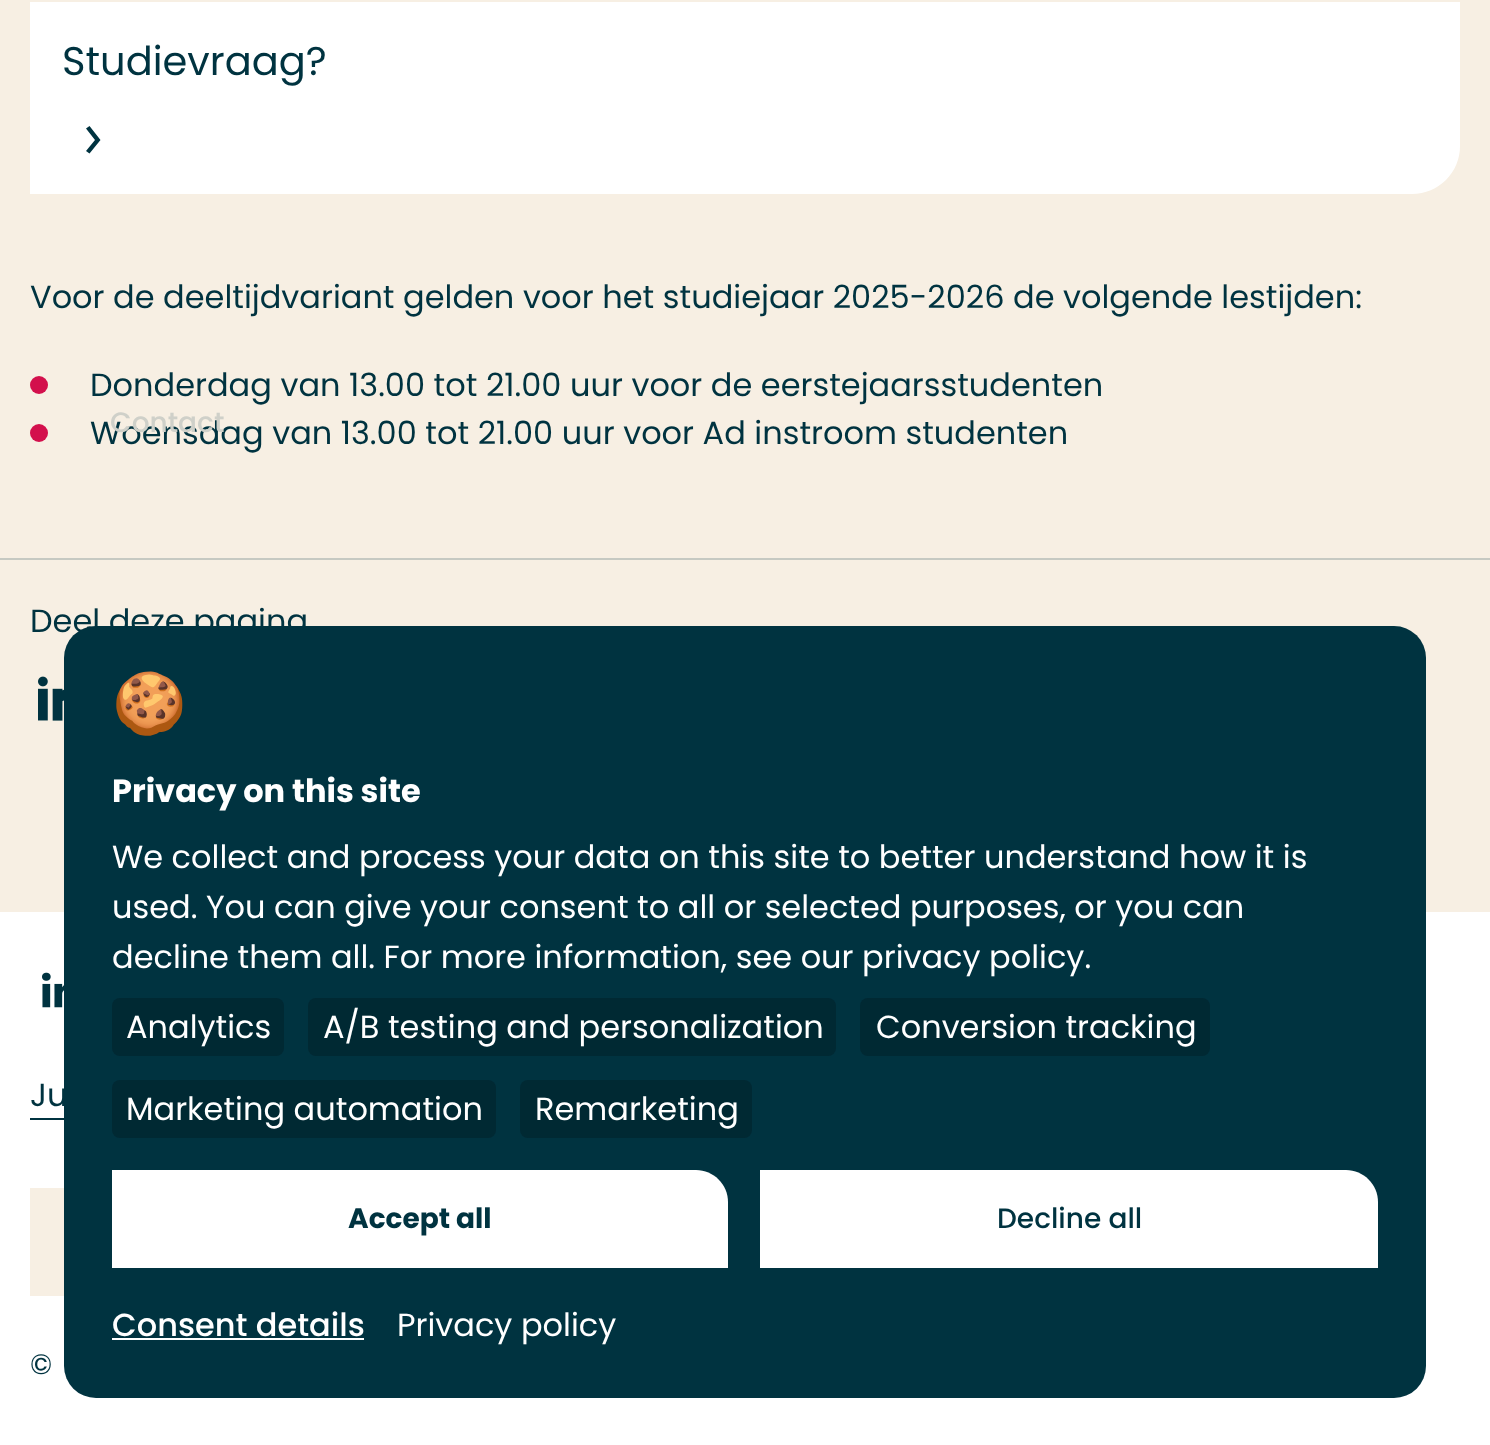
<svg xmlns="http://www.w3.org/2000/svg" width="1490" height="1445">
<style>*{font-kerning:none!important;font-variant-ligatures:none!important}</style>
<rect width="100%" height="100%" fill="#f7efe3"/>
<path d="M30 2h1430v144c0 26.5-21.5 48-48 48h-1382z" fill="#fff"/>
<text x="62" y="75" style="font-family:Poppins;font-size:40px;fill:#003340">Studievraag?</text>
<path d="M89.5 153.5l-3.5-2.5l9-11l-9-11.5l3.5-2.5l11 14z" fill="#003340"/>
<text x="30" y="308" style="font-family:Poppins;font-size:32px;fill:#003340">Voor de deeltijdvariant gelden voor het studiejaar 2025-2026 de volgende lestijden:</text>
<circle cx="39" cy="385" r="9" fill="#d3104c"/>
<text x="90" y="396" style="font-family:Poppins;font-size:32px;fill:#003340">Donderdag van 13.00 tot 21.00 uur voor de eerstejaarsstudenten</text>
<circle cx="39" cy="433" r="9" fill="#d3104c"/>
<text x="90" y="444" style="font-family:Poppins;font-size:32px;fill:#003340">Woensdag van 13.00 tot 21.00 uur voor Ad instroom studenten</text>
<rect y="558" width="1490" height="2" fill="#c6c9c2"/>
<text x="30" y="632" style="font-family:Poppins;font-size:32px;fill:#003340">Deel deze pagina</text>
<image x="38" y="676" width="26" height="45" href="media/1.png"/>
<rect y="912" width="1490" height="533" fill="#fff"/>
<image x="42" y="972" width="22" height="36" href="media/2.png"/>
<text x="30" y="1106" style="font-family:Poppins;font-size:32px;fill:#003340">Ju</text>
<rect x="30" y="1118" width="34" height="2" fill="#003340"/>
<rect x="30" y="1188" width="34" height="108" fill="#f7efe3"/>
<text x="30" y="1374" style="font-family:Poppins;font-size:28px;fill:#003340">©</text>
<text x="110" y="432" style="font-family:Poppins;font-size:28px;font-weight:500;fill:#cfd0c9">Contact</text>
<rect x="64" y="626" width="1362" height="772" rx="32" fill="#003340"/>
<text x="112" y="724" style="font-family:Noto Color Emoji;font-size:60px;fill:#fff">🍪</text>
<text x="112" y="802" style="font-family:Poppins;font-size:32px;font-weight:bold;fill:#fff">Privacy on this site</text>
<text x="112" y="868" style="font-family:Poppins;font-size:32px;fill:#fff">We collect and process your data on this site to better understand how it is</text>
<text x="112" y="918" style="font-family:Poppins;font-size:32px;fill:#fff">used. You can give your consent to all or selected purposes, or you can</text>
<text x="112" y="968" style="font-family:Poppins;font-size:32px;fill:#fff">decline them all. For more information, see our privacy policy.</text>
<rect x="112" y="998" width="172" height="58" rx="8" fill="#002933"/>
<text x="126" y="1038" style="font-family:Poppins;font-size:32px;fill:#fff">Analytics</text>
<rect x="308" y="998" width="528" height="58" rx="8" fill="#002933"/>
<text x="323" y="1038" style="font-family:Poppins;font-size:32px;fill:#fff">A/B testing and personalization</text>
<rect x="860" y="998" width="350" height="58" rx="8" fill="#002933"/>
<text x="876" y="1038" style="font-family:Poppins;font-size:32px;fill:#fff">Conversion tracking</text>
<rect x="112" y="1080" width="384" height="58" rx="8" fill="#002933"/>
<text x="126" y="1120" style="font-family:Poppins;font-size:32px;fill:#fff">Marketing automation</text>
<rect x="520" y="1080" width="232" height="58" rx="8" fill="#002933"/>
<text x="535" y="1120" style="font-family:Poppins;font-size:32px;fill:#fff">Remarketing</text>
<path d="M112 1170h584c17.5 0 32 14.5 32 32v66h-616z" fill="#fff"/>
<text x="348" y="1228" style="font-family:Poppins;font-size:28px;font-weight:bold;fill:#003340">Accept all</text>
<path d="M760 1170h586c17.5 0 32 14.5 32 32v66h-618z" fill="#fff"/>
<text x="997" y="1228" style="font-family:Poppins;font-size:28px;font-weight:500;fill:#003340">Decline all</text>
<text x="112" y="1336" style="font-family:Poppins;font-size:32px;font-weight:500;fill:#fff">Consent details</text>
<rect x="112" y="1338" width="252" height="2" fill="#fff"/>
<text x="397" y="1336" style="font-family:Poppins;font-size:32px;fill:#fff">Privacy policy</text>
</svg>
